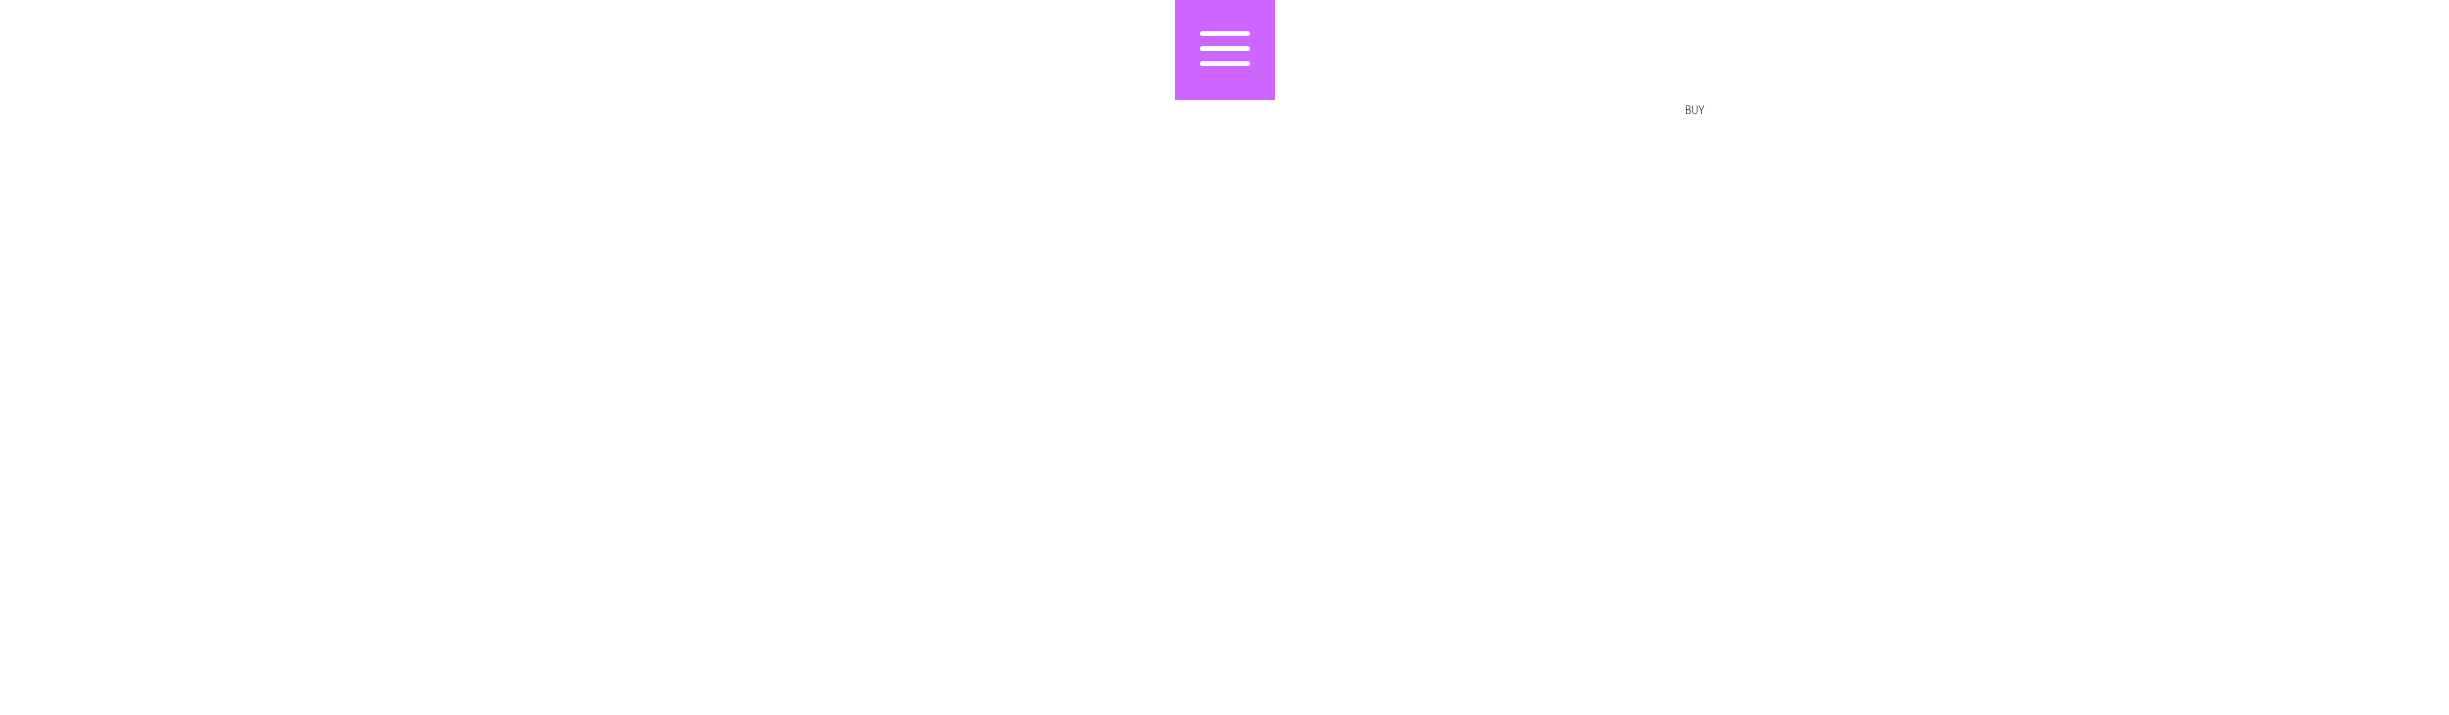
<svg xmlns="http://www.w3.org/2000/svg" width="2449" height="715">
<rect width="100%" height="100%" fill="#fff"/>
<rect x="1175" width="100" height="100" fill="#c6f"/>
<rect x="1200" y="46" width="50" height="5" rx="2.5" fill="#fff"/>
<rect x="1200" y="31" width="50" height="5" rx="2.5" fill="#fff"/>
<rect x="1200" y="61" width="50" height="5" rx="2.5" fill="#fff"/>
<text x="1685" y="114" style="font-family:Roboto Condensed;font-size:12px;font-weight:300;fill:#222">BUY</text>
</svg>
